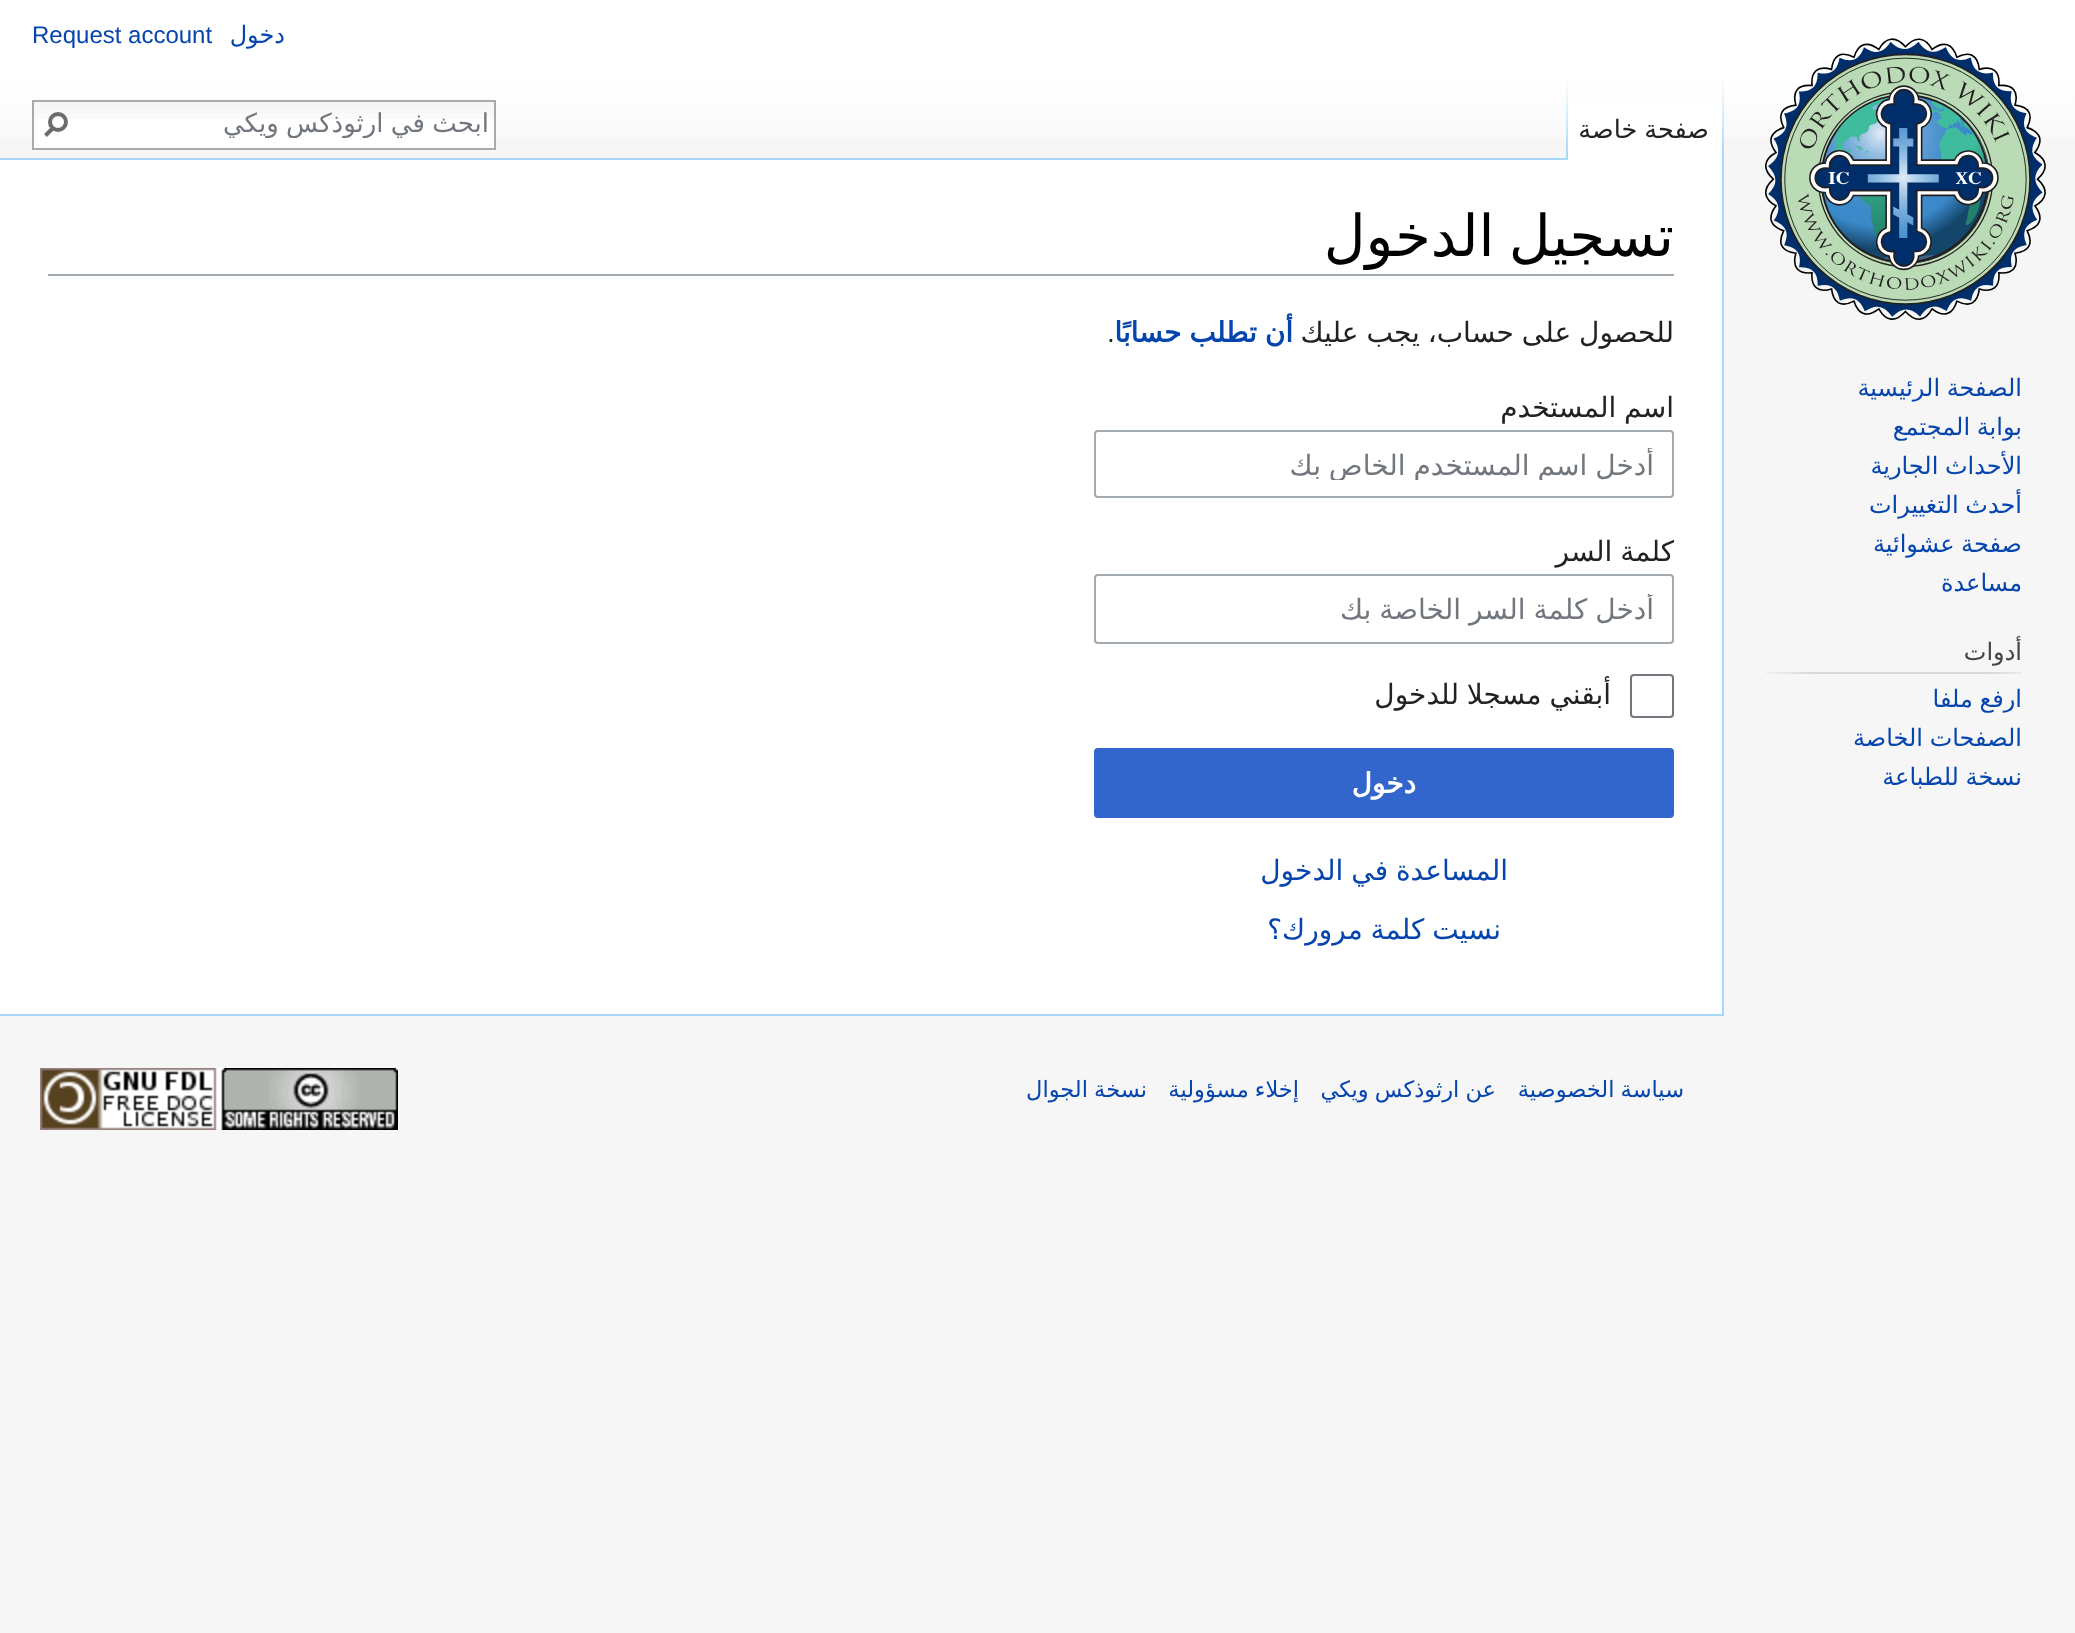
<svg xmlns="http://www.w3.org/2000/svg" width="2075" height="1633">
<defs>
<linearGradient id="g1" gradientUnits="userSpaceOnUse" x1="1038" y1="0" x2="1038" y2="160"><stop offset="0.5" stop-color="#fff"/><stop offset="1" stop-color="#f6f6f6"/></linearGradient>
<clipPath id="clip1"><rect x="104" y="108" width="384" height="30"/></clipPath>
<clipPath id="clip2"><rect x="1114" y="448" width="540" height="32"/></clipPath>
<clipPath id="clip3"><rect x="1114" y="594" width="540" height="32"/></clipPath>
</defs>
<rect width="100%" height="100%" fill="#f6f6f6"/>
<rect width="2075" height="138" fill="url(#g1)"/>
<text x="285" y="43" style="font-family:DejaVu Sans;font-size:24px;direction:rtl;fill:#0645ad">دخول</text>
<text x="32" y="43" style="font-family:Liberation Sans;font-size:24px;fill:#0645ad">Request account</text>
<image x="1722" y="80" width="2" height="78" href="media/1.png"/>
<rect x="1568" y="102" width="154" height="58" fill="#fff"/>
<image x="1566" y="80" width="2" height="80" href="media/2.png"/>
<text x="1709" y="138" word-spacing="-1" style="font-family:DejaVu Sans;font-size:25.5px;direction:rtl;fill:#222">صفحة خاصة</text>
<rect x="34" y="119" width="460" height="29" fill="#fff"/>
<image x="34" y="102" width="460" height="17" href="media/3.png"/>
<rect x="33" y="101" width="462" height="48" fill="none" stroke="#aaa" stroke-width="2"/>
<g clip-path="url(#clip1)">
<text x="489" y="132" word-spacing="-1" style="font-family:DejaVu Sans;font-size:26px;direction:rtl;fill:#72777d">ابحث في ارثوذكس ويكي</text>
</g>
<path d="M45.5 135.5l8-8" fill="none" stroke="#6c6c6c" stroke-width="4"/>
<circle cx="58" cy="122" r="8" fill="none" stroke="#6c6c6c" stroke-width="4"/>
<image x="1764" y="38" width="282" height="282" href="media/4.png"/>
<text x="2022" y="396" word-spacing="-1" style="font-family:DejaVu Sans;font-size:24px;direction:rtl;fill:#0645ad">الصفحة الرئيسية</text>
<text x="2022" y="435" word-spacing="-1" style="font-family:DejaVu Sans;font-size:24px;direction:rtl;fill:#0645ad">بوابة المجتمع</text>
<text x="2022" y="474" word-spacing="-1" style="font-family:DejaVu Sans;font-size:24px;direction:rtl;fill:#0645ad">الأحداث الجارية</text>
<text x="2022" y="513" word-spacing="-1" style="font-family:DejaVu Sans;font-size:24px;direction:rtl;fill:#0645ad">أحدث التغييرات</text>
<text x="2022" y="552" word-spacing="-1" style="font-family:DejaVu Sans;font-size:24px;direction:rtl;fill:#0645ad">صفحة عشوائية</text>
<text x="2022" y="591" style="font-family:DejaVu Sans;font-size:24px;direction:rtl;fill:#0645ad">مساعدة</text>
<text x="2022" y="660" style="font-family:DejaVu Sans;font-size:24px;direction:rtl;fill:#444">أدوات</text>
<image x="1765" y="672" width="257" height="2" href="media/5.png"/>
<text x="2022" y="707" word-spacing="-1" style="font-family:DejaVu Sans;font-size:24px;direction:rtl;fill:#0645ad">ارفع ملفا</text>
<text x="2022" y="746" word-spacing="-1" style="font-family:DejaVu Sans;font-size:24px;direction:rtl;fill:#0645ad">الصفحات الخاصة</text>
<text x="2022" y="785" word-spacing="-1" style="font-family:DejaVu Sans;font-size:24px;direction:rtl;fill:#0645ad">نسخة للطباعة</text>
<rect y="160" width="1722" height="854" fill="#fff"/>
<rect y="158" width="1566" height="2" fill="#a7d7f9"/>
<rect x="1722" y="158" width="2" height="858" fill="#a7d7f9"/>
<rect y="1014" width="1724" height="2" fill="#a7d7f9"/>
<rect x="48" y="274" width="1626" height="2" fill="#a2a9b1"/>
<text x="1674" y="256" word-spacing="-4" style="font-family:DejaVu Sans;font-size:57.5px;direction:rtl;fill:#000">تسجيل الدخول</text>
<text x="1674" y="342" word-spacing="-1" style="font-family:DejaVu Sans;font-size:28px;direction:rtl;fill:#222">للحصول على حساب، يجب عليك</text>
<text x="1293" y="342" word-spacing="-1" style="font-family:DejaVu Sans;font-size:28px;font-weight:bold;direction:rtl;fill:#0645ad">أن تطلب حسابًا</text>
<text x="1107" y="342" style="font-family:Liberation Sans;font-size:28px;fill:#222">.</text>
<text x="1674" y="417" word-spacing="-1" style="font-family:DejaVu Sans;font-size:28px;direction:rtl;fill:#222">اسم المستخدم</text>
<rect x="1095" y="431" width="578" height="66" rx="3" fill="none" stroke="#a2a9b1" stroke-width="2"/>
<g clip-path="url(#clip2)">
<text x="1654" y="475" word-spacing="-1" style="font-family:DejaVu Sans;font-size:28px;direction:rtl;fill:#72777d">أدخل اسم المستخدم الخاص بك</text>
</g>
<text x="1674" y="561" word-spacing="-1" style="font-family:DejaVu Sans;font-size:28px;direction:rtl;fill:#222">كلمة السر</text>
<rect x="1095" y="575" width="578" height="68" rx="3" fill="none" stroke="#a2a9b1" stroke-width="2"/>
<g clip-path="url(#clip3)">
<text x="1654" y="619" word-spacing="-1" style="font-family:DejaVu Sans;font-size:28px;direction:rtl;fill:#72777d">أدخل كلمة السر الخاصة بك</text>
</g>
<rect x="1631" y="675" width="42" height="42" rx="3" fill="none" stroke="#72777d" stroke-width="2"/>
<text x="1611" y="704" word-spacing="-1" style="font-family:DejaVu Sans;font-size:28px;direction:rtl;fill:#222">أبقني مسجلا للدخول</text>
<rect x="1095" y="749" width="578" height="68" rx="3" fill="#36c" stroke="#36c" stroke-width="2"/>
<text x="1416" y="793" style="font-family:DejaVu Sans;font-size:28px;font-weight:bold;direction:rtl;fill:#fff">دخول</text>
<text x="1508" y="880" word-spacing="-1" style="font-family:DejaVu Sans;font-size:28px;direction:rtl;fill:#0645ad">المساعدة في الدخول</text>
<text x="1501" y="939" word-spacing="-1" style="font-family:DejaVu Sans;font-size:28px;direction:rtl;fill:#0645ad">نسيت كلمة مرورك؟</text>
<text x="1684" y="1097" word-spacing="-1" style="font-family:DejaVu Sans;font-size:22.5px;direction:rtl;fill:#0645ad">سياسة الخصوصية</text>
<text x="1496" y="1097" word-spacing="-1" style="font-family:DejaVu Sans;font-size:22.5px;direction:rtl;fill:#0645ad">عن ارثوذكس ويكي</text>
<text x="1299" y="1097" word-spacing="-1" style="font-family:DejaVu Sans;font-size:22.5px;direction:rtl;fill:#0645ad">إخلاء مسؤولية</text>
<text x="1147" y="1097" word-spacing="-1" style="font-family:DejaVu Sans;font-size:22.5px;direction:rtl;fill:#0645ad">نسخة الجوال</text>
<image x="40" y="1068" width="358" height="62" href="media/6.png"/>
</svg>
